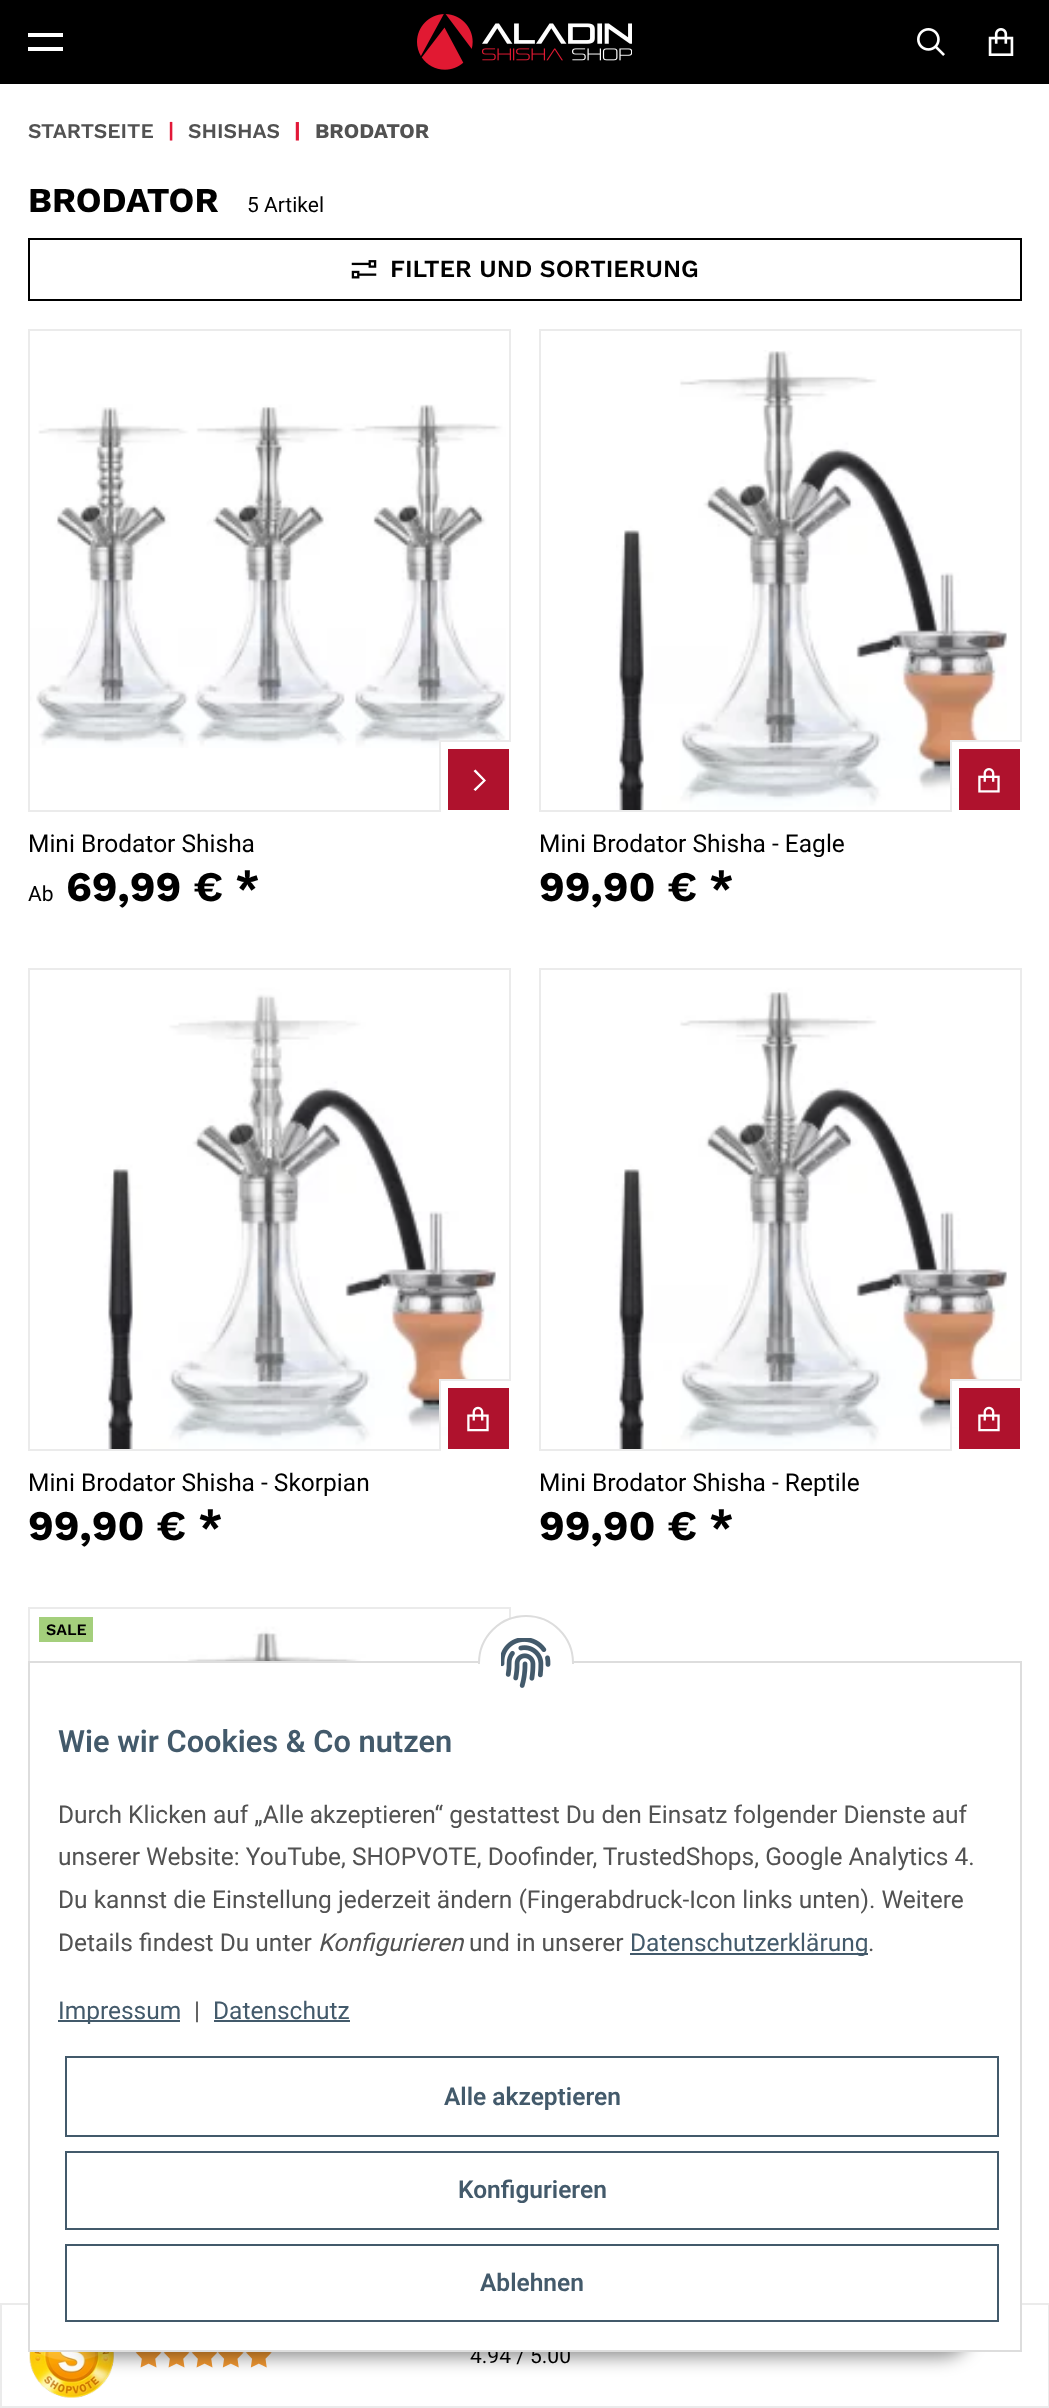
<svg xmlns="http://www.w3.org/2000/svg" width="1049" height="2408">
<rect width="100%" height="100%" fill="#fff"/>
<rect width="1049" height="84" fill="#000"/>
<rect x="28" y="33" width="35" height="4" fill="#fff"/>
<rect x="28" y="47" width="35" height="4" fill="#fff"/>
<image x="417" y="14" width="215" height="56" href="media/1.png"/>
<image x="917" y="28" width="28" height="28" href="media/2.png"/>
<image x="988" y="28" width="26" height="28" href="media/3.png"/>
<text x="28" y="138" style="font-family:Work Sans;font-size:21px;font-weight:600;fill:#525252">STARTSEITE</text>
<text x="168" y="137" style="font-family:Work Sans;font-size:21px;font-weight:600;fill:#e21838">|</text>
<text x="188" y="138" style="font-family:Work Sans;font-size:21px;font-weight:600;fill:#525252">SHISHAS</text>
<text x="294" y="137" style="font-family:Work Sans;font-size:21px;font-weight:bold;fill:#e21838">|</text>
<text x="315" y="138" style="font-family:Work Sans;font-size:21px;font-weight:bold;fill:#525252">BRODATOR</text>
<text x="28" y="212" style="font-family:Work Sans;font-size:35px;font-weight:bold;fill:#000">BRODATOR</text>
<text x="247" y="212" style="font-family:Roboto;font-size:21px;fill:#000">5 Artikel</text>
<rect x="29" y="239" width="992" height="61" fill="none" stroke="#000" stroke-width="2"/>
<image x="351" y="260" width="26" height="19" href="media/4.png"/>
<text x="390" y="277" style="font-family:Work Sans;font-size:24.5px;font-weight:600;fill:#000">FILTER UND SORTIERUNG</text>
<rect x="29" y="330" width="481" height="481" fill="none" stroke="#ebebeb" stroke-width="2"/>
<image x="30" y="404" width="476" height="344" href="media/5.png"/>
<path d="M439 740v70h2v-68h68v-2z" fill="#ebebeb"/>
<rect x="448" y="749" width="61" height="61" fill="#af122d"/>
<rect x="441" y="742" width="70" height="7" fill="#fff"/>
<rect x="509" y="742" width="2" height="70" fill="#fff"/>
<rect x="441" y="810" width="70" height="2" fill="#fff"/>
<path d="M486 780.5l-10.5 10.5l-2-1.5l9.5-9l-9.5-9.5l2-1.5z" fill="#fff"/>
<text x="28" y="852" style="font-family:Roboto;font-size:24.5px;fill:#000">Mini Brodator Shisha</text>
<text x="28" y="901" style="font-family:Roboto;font-size:21px;fill:#000">Ab</text>
<text x="66" y="901" style="font-family:Work Sans;font-size:42px;font-weight:bold;fill:#000">69,99 € *</text>
<image x="616" y="350" width="391" height="460" href="media/6.png"/>
<rect x="540" y="330" width="481" height="481" fill="none" stroke="#ebebeb" stroke-width="2"/>
<path d="M950 740v70h2v-68h68v-2z" fill="#ebebeb"/>
<rect x="959" y="749" width="61" height="61" fill="#af122d"/>
<rect x="952" y="742" width="70" height="7" fill="#fff"/>
<rect x="1020" y="742" width="2" height="70" fill="#fff"/>
<rect x="952" y="810" width="70" height="2" fill="#fff"/>
<rect x="952" y="742" width="7" height="46" fill="#fff"/>
<image x="978" y="768" width="22" height="25" href="media/7.png"/>
<text x="539" y="852" style="font-family:Roboto;font-size:24.5px;fill:#000">Mini Brodator Shisha - Eagle</text>
<text x="539" y="901" style="font-family:Work Sans;font-size:42px;font-weight:bold;fill:#000">99,90 € *</text>
<image x="30" y="970" width="479" height="479" href="media/8.png"/>
<rect x="29" y="969" width="481" height="481" fill="none" stroke="#ebebeb" stroke-width="2"/>
<path d="M439 1379v70h2v-68h68v-2z" fill="#ebebeb"/>
<rect x="448" y="1388" width="61" height="61" fill="#af122d"/>
<rect x="441" y="1381" width="70" height="7" fill="#fff"/>
<rect x="509" y="1381" width="2" height="70" fill="#fff"/>
<rect x="441" y="1449" width="70" height="2" fill="#fff"/>
<rect x="441" y="1381" width="7" height="46" fill="#fff"/>
<image x="467" y="1406" width="22" height="26" href="media/9.png"/>
<text x="28" y="1491" style="font-family:Roboto;font-size:24.5px;fill:#000">Mini Brodator Shisha - Skorpian</text>
<text x="28" y="1540" style="font-family:Work Sans;font-size:42px;font-weight:bold;fill:#000">99,90 € *</text>
<image x="541" y="970" width="479" height="479" href="media/10.png"/>
<rect x="540" y="969" width="481" height="481" fill="none" stroke="#ebebeb" stroke-width="2"/>
<path d="M950 1379v70h2v-68h68v-2z" fill="#ebebeb"/>
<rect x="959" y="1388" width="61" height="61" fill="#af122d"/>
<rect x="952" y="1381" width="70" height="7" fill="#fff"/>
<rect x="1020" y="1381" width="2" height="70" fill="#fff"/>
<rect x="952" y="1449" width="70" height="2" fill="#fff"/>
<rect x="952" y="1381" width="7" height="46" fill="#fff"/>
<image x="978" y="1406" width="22" height="26" href="media/9.png"/>
<text x="539" y="1491" style="font-family:Roboto;font-size:24.5px;fill:#000">Mini Brodator Shisha - Reptile</text>
<text x="539" y="1540" style="font-family:Work Sans;font-size:42px;font-weight:bold;fill:#000">99,90 € *</text>
<image x="30" y="1609" width="479" height="52" href="media/11.png"/>
<rect x="29" y="1608" width="481" height="481" fill="none" stroke="#ebebeb" stroke-width="2"/>
<rect x="39" y="1617" width="54" height="25" fill="#a4cf7c"/>
<text x="46" y="1635" style="font-family:Work Sans;font-size:16px;font-weight:600;fill:#000">SALE</text>
<rect x="1" y="2304" width="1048" height="103" fill="none" stroke="#ebebeb" stroke-width="2"/>
<image x="29" y="2352" width="85" height="46" href="media/13.png"/>
<image x="135" y="2352" width="27" height="16" href="media/14.png"/>
<image x="163" y="2352" width="27" height="16" href="media/14.png"/>
<image x="191" y="2352" width="27" height="16" href="media/14.png"/>
<image x="218" y="2352" width="26" height="16" href="media/15.png"/>
<image x="246" y="2352" width="26" height="16" href="media/15.png"/>
<rect x="79" y="2301" width="892" height="56" rx="28" fill="#00000073" filter="blur(9px)"/>
<text x="470" y="2363" style="font-family:Roboto;font-size:21px;fill:#000">4.94 / 5.00</text>
<rect x="29" y="1662" width="992" height="689" fill="#fff" stroke="#ddd" stroke-width="2"/>
<rect x="479" y="1616" width="94" height="95" rx="47" fill="#fff" stroke="#ddd" stroke-width="2"/>
<rect x="478" y="1664" width="96" height="48" fill="#fff"/>
<image x="501" y="1638" width="50" height="50" href="media/12.png"/>
<text x="58" y="1752" style="font-family:Roboto;font-size:30.75px;font-weight:600;fill:#435a6b">Wie wir Cookies &amp; Co nutzen</text>
<text x="58" y="1823" style="font-family:Roboto;font-size:24.5px;fill:#525252">Durch Klicken auf „Alle akzeptieren“ gestattest Du den Einsatz folgender Dienste auf</text>
<text x="58" y="1865" style="font-family:Roboto;font-size:24.5px;fill:#525252">unserer Website: YouTube, SHOPVOTE, Doofinder, TrustedShops, Google Analytics 4.</text>
<text x="58" y="1908" style="font-family:Roboto;font-size:24.5px;fill:#525252">Du kannst die Einstellung jederzeit ändern (Fingerabdruck-Icon links unten). Weitere</text>
<text x="58" y="1951" style="font-family:Roboto;font-size:24.5px;fill:#525252">Details findest Du unter</text>
<text x="318" y="1951" style="font-family:Roboto;font-size:24.5px;font-style:italic;fill:#525252">Konfigurieren</text>
<text x="469" y="1951" style="font-family:Roboto;font-size:24.5px;fill:#525252">und in unserer</text>
<rect x="630" y="1953" width="238" height="2" fill="#435a6b"/>
<text x="630" y="1951" style="font-family:Roboto;font-size:24.5px;fill:#435a6b">Datenschutzerklärung</text>
<text x="868" y="1951" style="font-family:Roboto;font-size:24.5px;fill:#525252">.</text>
<rect x="58" y="2020" width="122" height="2" fill="#435a6b"/>
<text x="58" y="2019" style="font-family:Roboto;font-size:24.5px;fill:#435a6b">Impressum</text>
<text x="194" y="2019" style="font-family:Roboto;font-size:24.5px;fill:#525252">|</text>
<text x="213" y="2019" style="font-family:Roboto;font-size:24.5px;fill:#435a6b">Datenschutz</text>
<rect x="214" y="2020" width="136" height="2" fill="#435a6b"/>
<rect x="66" y="2057" width="932" height="79" fill="none" stroke="#435a6b" stroke-width="2"/>
<text x="444" y="2105" style="font-family:Roboto;font-size:24.5px;font-weight:600;fill:#435a6b">Alle akzeptieren</text>
<rect x="66" y="2152" width="932" height="77" fill="none" stroke="#435a6b" stroke-width="2"/>
<text x="458" y="2198" style="font-family:Roboto;font-size:24.5px;font-weight:600;fill:#435a6b">Konfigurieren</text>
<rect x="66" y="2245" width="932" height="76" fill="none" stroke="#435a6b" stroke-width="2"/>
<text x="480" y="2291" style="font-family:Roboto;font-size:24.5px;font-weight:600;fill:#435a6b">Ablehnen</text>
</svg>
